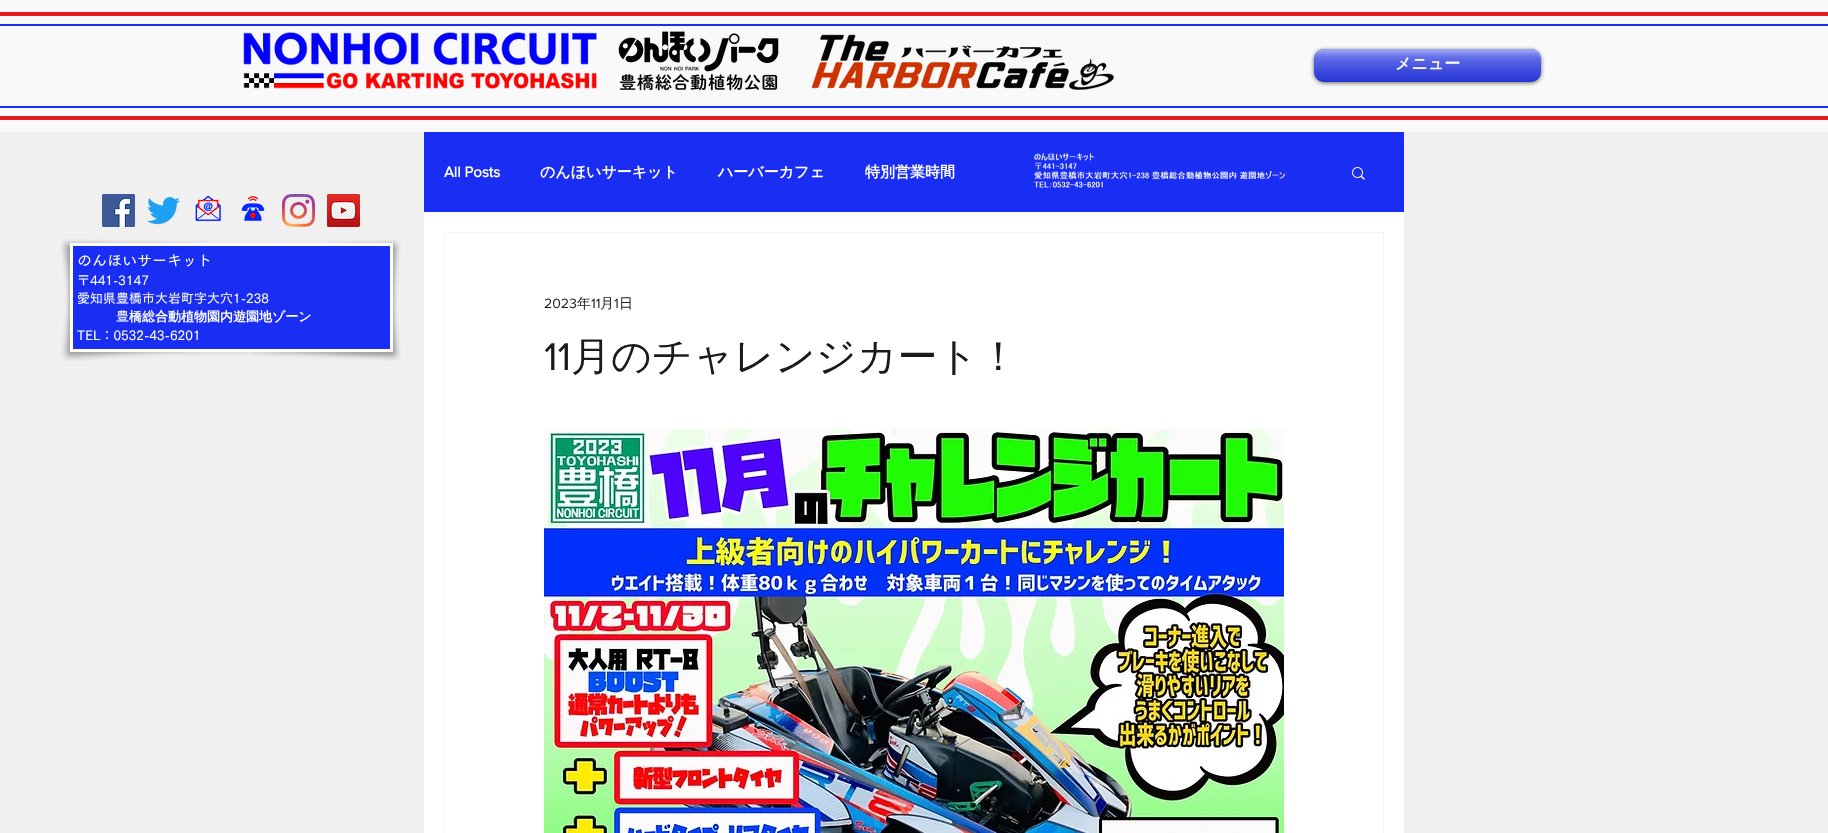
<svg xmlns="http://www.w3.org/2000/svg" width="1828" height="833">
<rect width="100%" height="100%" fill="#f0f0f0"/>
<rect width="1828" height="132" fill="#f9f9f9"/>
<rect y="12" width="1828" height="4" fill="#e21c21"/>
<rect y="116" width="1828" height="4" fill="#e21c21"/>
<rect y="24" width="1828" height="2" fill="#1a2df3"/>
<rect y="106" width="1828" height="2" fill="#1a2df3"/>
<image x="243" y="32" width="354" height="57" href="media/1.png"/>
<image x="618" y="31" width="161" height="60" href="media/2.png"/>
<image x="811" y="34" width="303" height="56" href="media/3.png"/>
<rect x="1314" y="50" width="227" height="33" rx="10" fill="#00000099" filter="blur(2px)"/>
<rect x="1314" y="49" width="227" height="33" rx="10" fill="#1a2df3"/>
<image x="1314" y="49" width="227" height="33" href="media/4.png"/>
<image x="1314" y="49" width="227" height="33" href="media/5.png"/>
<text x="1395" y="69" style="font-family:WenQuanYi Zen Hei;font-size:16px;font-weight:bold;fill:#fff">メニュー</text>
<image x="102" y="194" width="33" height="33" href="media/6.png"/>
<image x="147" y="197" width="33" height="28" href="media/7.png"/>
<image x="195" y="195" width="26" height="27" href="media/8.png"/>
<image x="241" y="196" width="24" height="25" href="media/9.png"/>
<image x="282" y="194" width="33" height="33" href="media/10.png"/>
<image x="327" y="194" width="33" height="33" href="media/11.png"/>
<rect x="424" y="212" width="980" height="621" fill="#fff"/>
<rect x="424" y="132" width="980" height="80" fill="#1a2df3"/>
<text x="444" y="177" style="font-family:'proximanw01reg';font-size:15px;font-weight:bold;fill:#fff">All Posts</text>
<text x="540" y="177" style="font-family:WenQuanYi Zen Hei;font-size:15px;font-weight:bold;fill:#fff">のんほいサーキット</text>
<text x="718" y="177" style="font-family:WenQuanYi Zen Hei;font-size:15px;font-weight:bold;fill:#fff">ハーバーカフェ</text>
<text x="865" y="177" style="font-family:WenQuanYi Zen Hei;font-size:15px;font-weight:bold;fill:#fff">特別営業時間</text>
<image x="1352" y="167" width="13" height="13" href="media/12.png"/>
<rect x="444.5" y="232.5" width="939" height="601" fill="none" stroke="#f4f4f4"/>
<text x="544" y="308" style="font-family:'proximanw01reg';font-size:14px;fill:#1a1a1a">2023</text>
<text x="577" y="308" style="font-family:WenQuanYi Zen Hei;font-size:14px;font-weight:500;fill:#1a1a1a">年</text>
<text x="591" y="308" style="font-family:'proximanw01reg';font-size:14px;fill:#1a1a1a">11</text>
<text x="600" y="308" style="font-family:WenQuanYi Zen Hei;font-size:14px;font-weight:500;fill:#1a1a1a">月</text>
<text x="614" y="308" style="font-family:'proximanw01reg';font-size:14px;fill:#1a1a1a">1</text>
<text x="619" y="308" style="font-family:WenQuanYi Zen Hei;font-size:14px;font-weight:500;fill:#1a1a1a">日</text>
<text x="544" y="370" style="font-family:'proximanw01reg';font-size:40px;fill:#1a1a1a">11</text>
<text x="571" y="370" style="font-family:WenQuanYi Zen Hei;font-size:40px;font-weight:500;fill:#1a1a1a">月のチャレンジカート！</text>
<image x="544" y="429" width="740" height="404" href="media/13.png"/>
<image x="1034" y="153" width="251" height="35" href="media/14.png"/>
<image x="61" y="239" width="146" height="108" href="media/15.png"/>
<image x="328" y="240" width="73" height="88" href="media/16.png"/>
<image x="251" y="270" width="150" height="91" href="media/17.png"/>
<image x="61" y="281" width="139" height="80" href="media/18.png"/>
<rect x="70" y="244" width="323" height="109" fill="#0000001a" filter="blur(2.5px)"/>
<rect x="71.5" y="244.5" width="320" height="106" fill="#1a2df3" stroke="#fff" stroke-width="3"/>
<text x="77" y="266" style="font-family:'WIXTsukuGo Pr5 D';font-size:15px;font-weight:600;fill:#fff">のんほいサーキット</text>
<text x="77" y="285" style="font-family:'WIXTsukuGo Pr5 D';font-size:13px;font-weight:600;fill:#fff">〒441-3147</text>
<text x="77" y="303" style="font-family:'WIXTsukuGo Pr5 D';font-size:13px;font-weight:600;fill:#fff">愛知県豊橋市大岩町字大穴1-238</text>
<text x="116" y="321" style="font-family:'WIXTsukuGo Pr5 D';font-size:13px;font-weight:600;fill:#fff">豊</text>
<text x="129" y="321" style="font-family:WenQuanYi Zen Hei;font-size:13px;font-weight:bold;fill:#fff">橋総合動植物園内遊園地ゾーン</text>
<text x="77" y="340" style="font-family:'WIXTsukuGo Pr5 D';font-size:13px;font-weight:600;fill:#fff">TEL：0532-43-6201</text>
</svg>
